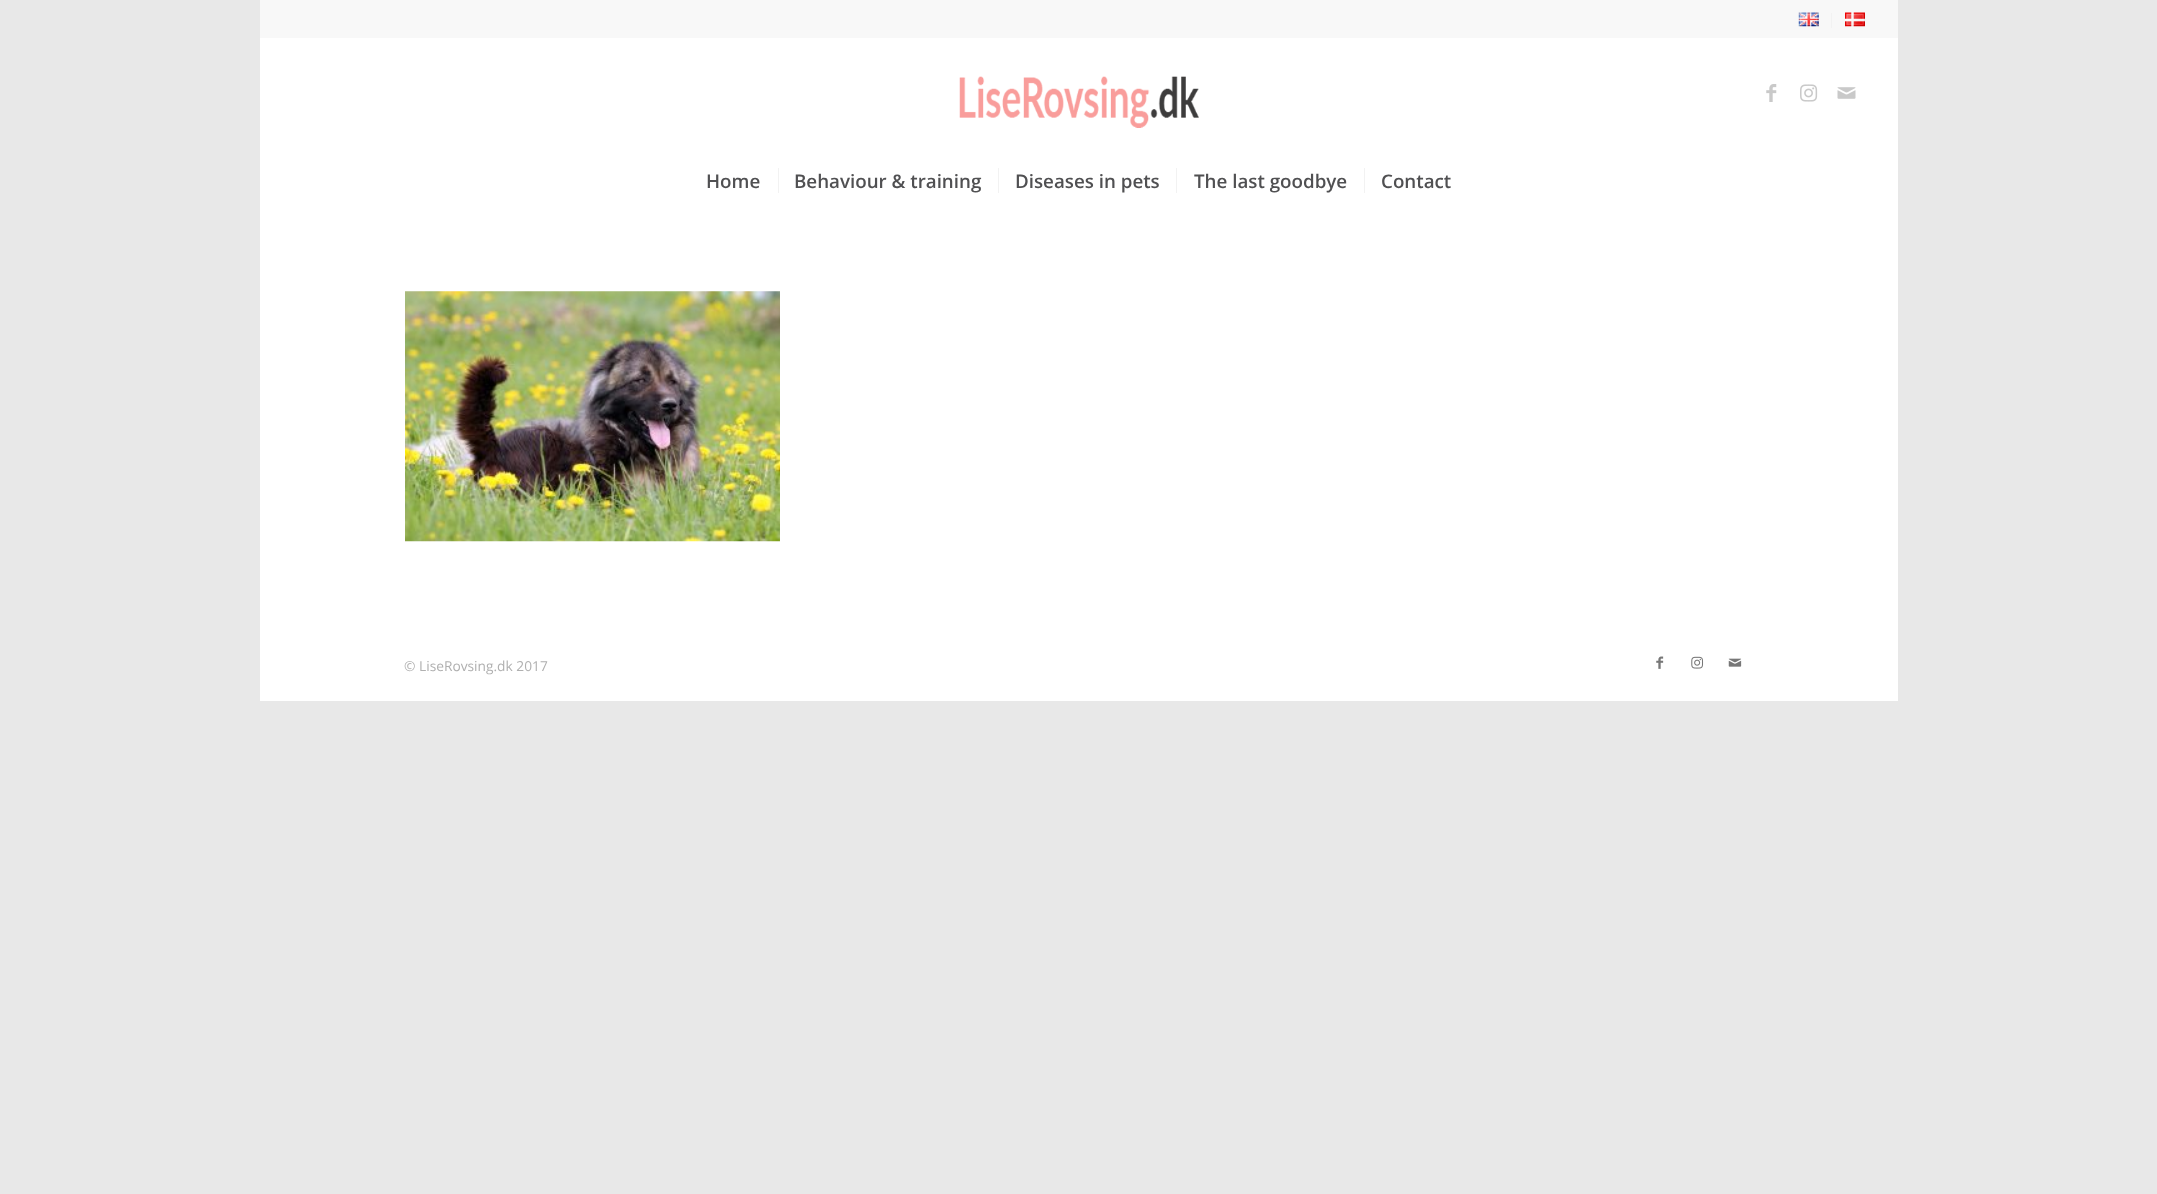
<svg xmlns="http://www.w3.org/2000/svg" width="2157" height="1194">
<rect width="100%" height="100%" fill="#e8e8e8"/>
<rect x="260" width="1638" height="38" fill="#f8f8f8"/>
<rect x="1831" y="13" width="1" height="15" fill="#f2f2f2"/>
<image x="1798" y="12" width="21" height="15" href="media/1.png"/>
<image x="1845" y="12" width="20" height="15" href="media/2.png"/>
<rect x="260" y="38" width="1638" height="663" fill="#fff"/>
<image x="959" y="76" width="240" height="52" href="media/3.png"/>
<image x="1766" y="84" width="11" height="18" href="media/4.png"/>
<image x="1800" y="84" width="18" height="18" href="media/5.png"/>
<image x="1837" y="87" width="19" height="12" href="media/6.png"/>
<text x="706" y="188" style="font-family:Open Sans;font-size:18.75px;font-weight:600;fill:#505052">Home</text>
<text x="794" y="188" style="font-family:Open Sans;font-size:18.75px;font-weight:600;fill:#505052">Behaviour &amp; training</text>
<rect x="778" y="168" width="1" height="25" fill="#f2f2f2"/>
<text x="1015" y="188" style="font-family:Open Sans;font-size:18.75px;font-weight:600;fill:#505052">Diseases in pets</text>
<rect x="998" y="168" width="1" height="25" fill="#f2f2f2"/>
<text x="1194" y="188" style="font-family:Open Sans;font-size:18.75px;font-weight:600;fill:#505052">The last goodbye</text>
<rect x="1176" y="168" width="1" height="25" fill="#f2f2f2"/>
<text x="1381" y="188" style="font-family:Open Sans;font-size:18.75px;font-weight:600;fill:#505052">Contact</text>
<rect x="1364" y="168" width="1" height="25" fill="#f2f2f2"/>
<image x="405" y="291" width="375" height="251" href="media/7.png"/>
<text x="404" y="671" style="font-family:Open Sans;font-size:13.75px;fill:#b0b0b0">© LiseRovsing.dk 2017</text>
<image x="1656" y="656" width="8" height="13" href="media/8.png"/>
<image x="1691" y="656" width="13" height="13" href="media/9.png"/>
<image x="1728" y="658" width="14" height="9" href="media/10.png"/>
</svg>
